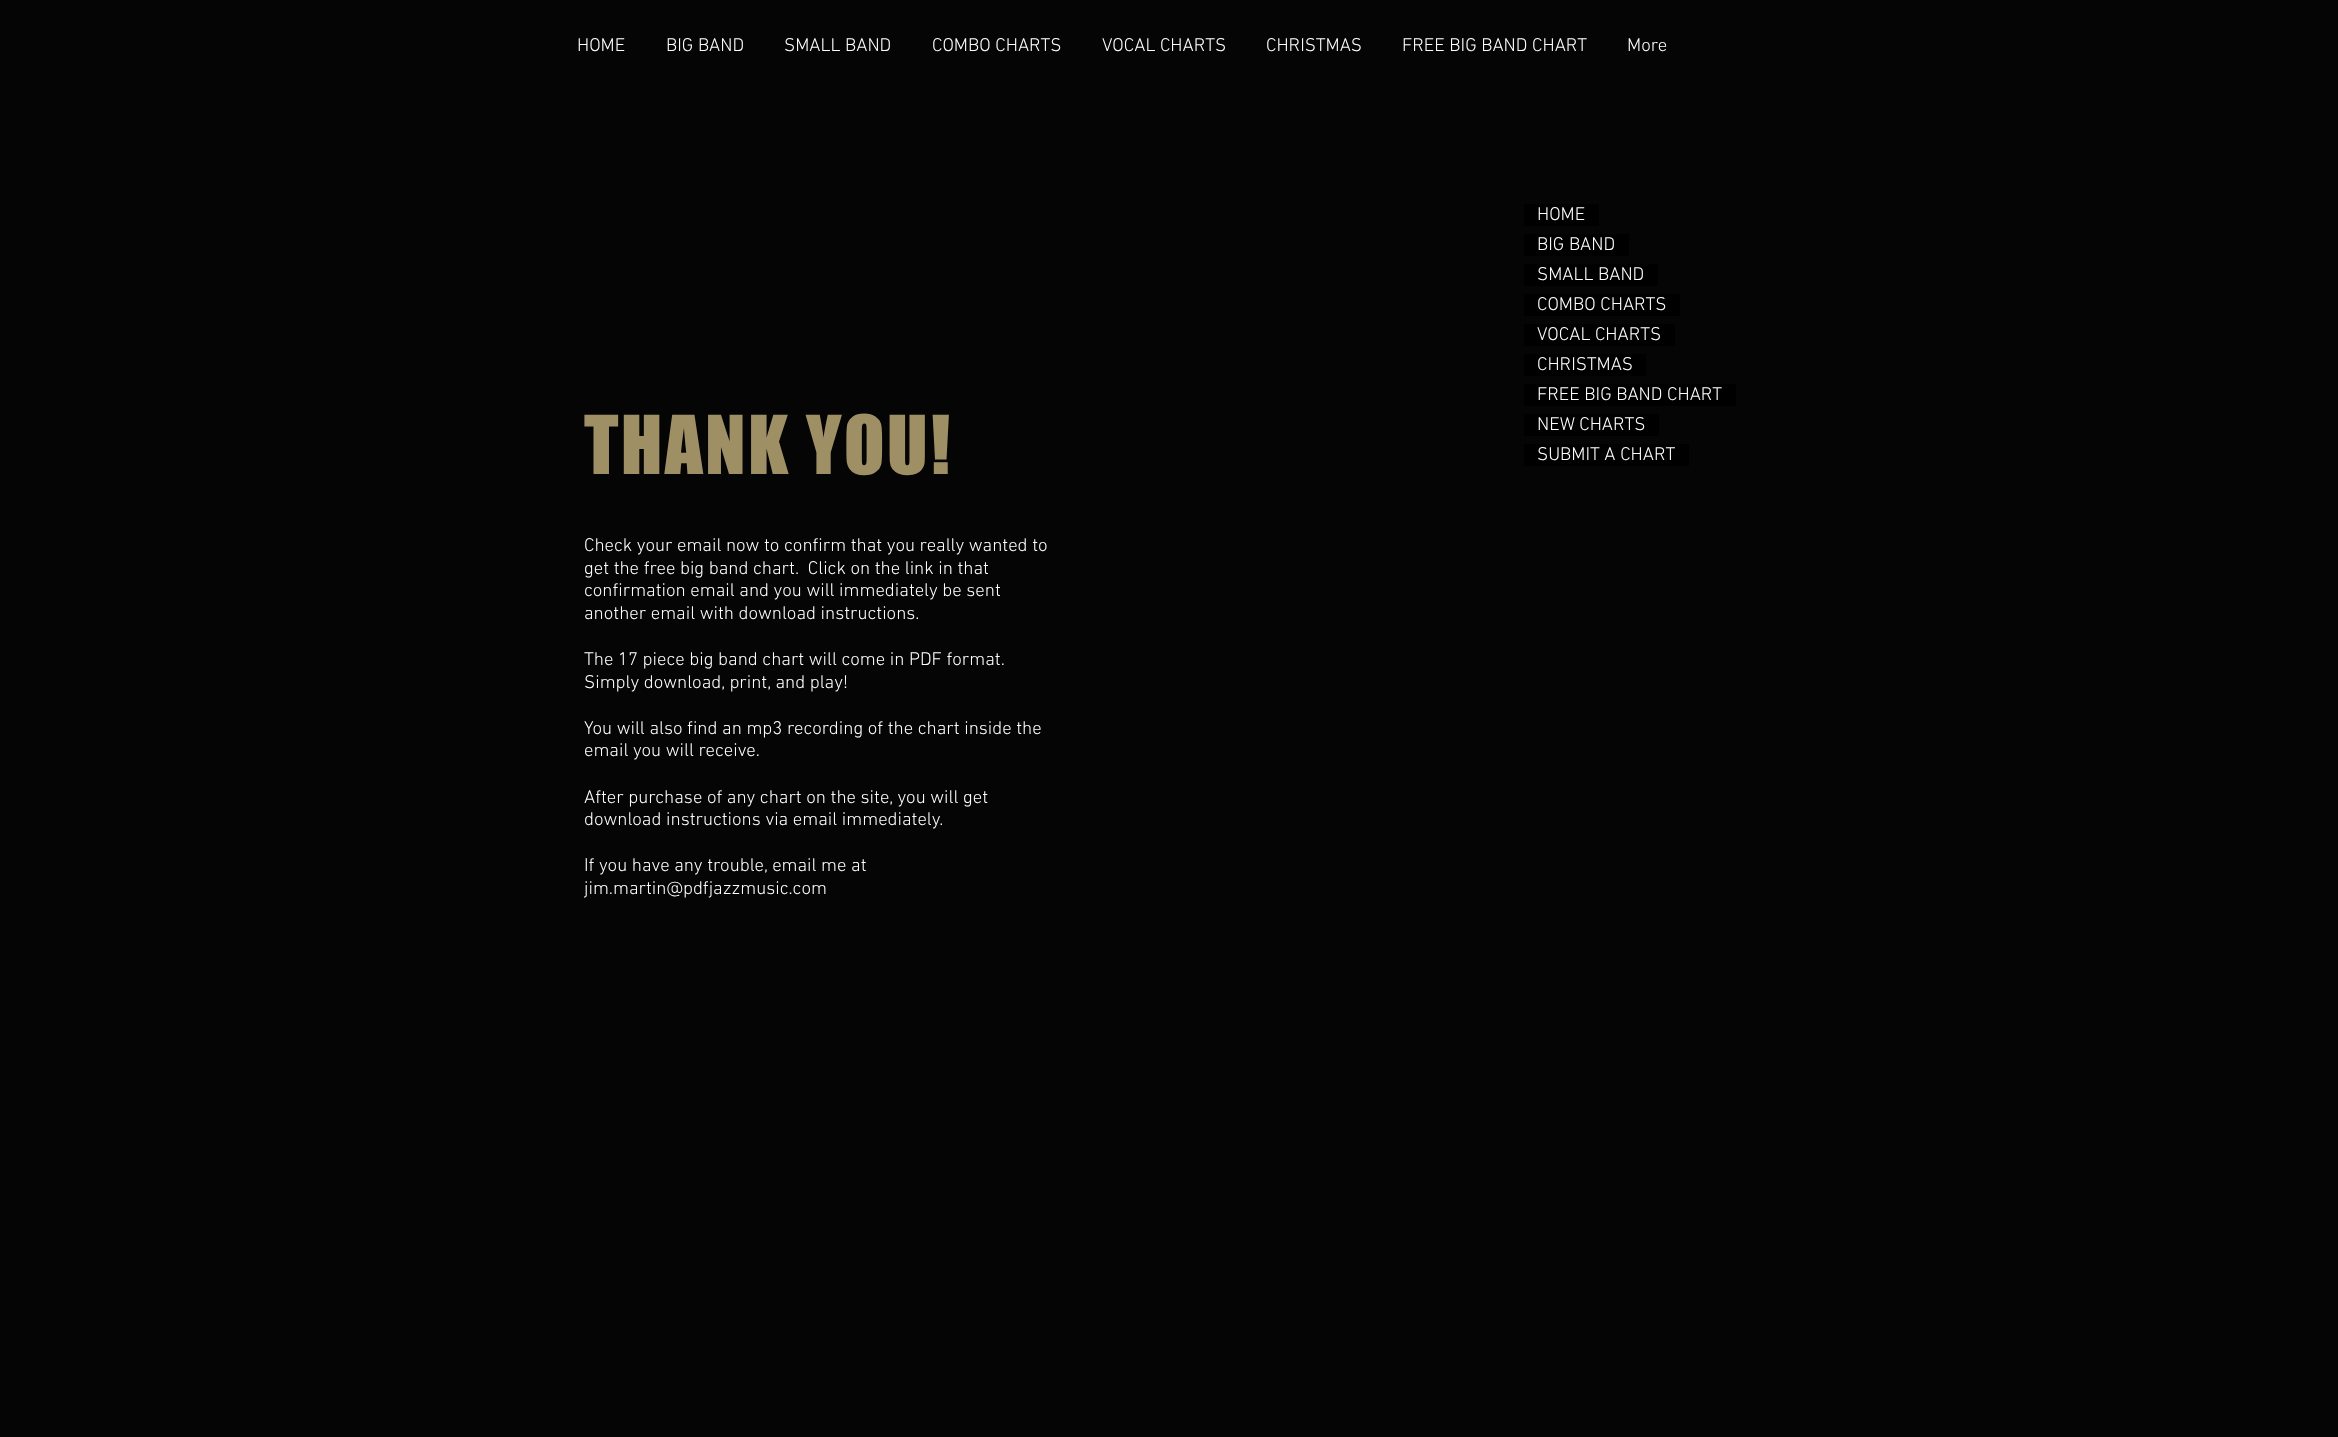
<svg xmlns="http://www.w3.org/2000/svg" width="2338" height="1437">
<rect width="100%" height="100%" fill="#050505"/>
<text x="577" y="51" style="font-family:'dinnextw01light';font-size:18.75px;font-weight:300;fill:#fff">HOME</text>
<text x="666" y="51" style="font-family:'dinnextw01light';font-size:18.75px;font-weight:300;fill:#fff">BIG BAND</text>
<text x="784" y="51" style="font-family:'dinnextw01light';font-size:18.75px;font-weight:300;fill:#fff">SMALL BAND</text>
<text x="932" y="51" style="font-family:'dinnextw01light';font-size:18.75px;font-weight:300;fill:#fff">COMBO CHARTS</text>
<text x="1102" y="51" style="font-family:'dinnextw01light';font-size:18.75px;font-weight:300;fill:#fff">VOCAL CHARTS</text>
<text x="1266" y="51" style="font-family:'dinnextw01light';font-size:18.75px;font-weight:300;fill:#fff">CHRISTMAS</text>
<text x="1402" y="51" style="font-family:'dinnextw01light';font-size:18.75px;font-weight:300;fill:#fff">FREE BIG BAND CHART</text>
<text x="1627" y="51" style="font-family:'dinnextw01light';font-size:18.75px;font-weight:300;fill:#fff">More</text>
<text x="584" y="474" style="font-family:'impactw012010';font-size:75px;letter-spacing:2.25px;fill:#9e8f65">THANK YOU!</text>
<rect x="1524" y="204" width="75" height="22" fill="#000"/>
<text x="1537" y="220" style="font-family:'dinnextw01light';font-size:18.75px;font-weight:300;fill:#fff">HOME</text>
<rect x="1524" y="234" width="105" height="22" fill="#000"/>
<text x="1537" y="250" style="font-family:'dinnextw01light';font-size:18.75px;font-weight:300;fill:#fff">BIG BAND</text>
<rect x="1524" y="264" width="134" height="22" fill="#000"/>
<text x="1537" y="280" style="font-family:'dinnextw01light';font-size:18.75px;font-weight:300;fill:#fff">SMALL BAND</text>
<rect x="1524" y="294" width="156" height="22" fill="#000"/>
<text x="1537" y="310" style="font-family:'dinnextw01light';font-size:18.75px;font-weight:300;fill:#fff">COMBO CHARTS</text>
<rect x="1524" y="324" width="151" height="22" fill="#000"/>
<text x="1537" y="340" style="font-family:'dinnextw01light';font-size:18.75px;font-weight:300;fill:#fff">VOCAL CHARTS</text>
<rect x="1524" y="354" width="122" height="22" fill="#000"/>
<text x="1537" y="370" style="font-family:'dinnextw01light';font-size:18.75px;font-weight:300;fill:#fff">CHRISTMAS</text>
<rect x="1524" y="384" width="212" height="22" fill="#000"/>
<text x="1537" y="400" style="font-family:'dinnextw01light';font-size:18.75px;font-weight:300;fill:#fff">FREE BIG BAND CHART</text>
<rect x="1524" y="414" width="135" height="22" fill="#000"/>
<text x="1537" y="430" style="font-family:'dinnextw01light';font-size:18.75px;font-weight:300;fill:#fff">NEW CHARTS</text>
<rect x="1524" y="444" width="165" height="22" fill="#000"/>
<text x="1537" y="460" style="font-family:'dinnextw01light';font-size:18.75px;font-weight:300;fill:#fff">SUBMIT A CHART</text>
<text x="584" y="551" style="font-family:'dinnextw01light';font-size:18.75px;font-weight:300;fill:#fff">Check your email now to confirm that you really wanted to</text>
<text x="584" y="574" style="font-family:'dinnextw01light';font-size:18.75px;font-weight:300;fill:#fff" xml:space="preserve">get the free big band chart.  Click on the link in that</text>
<text x="584" y="596" style="font-family:'dinnextw01light';font-size:18.75px;font-weight:300;fill:#fff">confirmation email and you will immediately be sent</text>
<text x="584" y="619" style="font-family:'dinnextw01light';font-size:18.75px;font-weight:300;fill:#fff">another email with download instructions.</text>
<text x="584" y="665" style="font-family:'dinnextw01light';font-size:18.75px;font-weight:300;fill:#fff">The 17 piece big band chart will come in PDF format.</text>
<text x="584" y="688" style="font-family:'dinnextw01light';font-size:18.75px;font-weight:300;fill:#fff">Simply download, print, and play!</text>
<text x="584" y="734" style="font-family:'dinnextw01light';font-size:18.75px;font-weight:300;fill:#fff">You will also find an mp3 recording of the chart inside the</text>
<text x="584" y="756" style="font-family:'dinnextw01light';font-size:18.75px;font-weight:300;fill:#fff">email you will receive.</text>
<text x="584" y="803" style="font-family:'dinnextw01light';font-size:18.75px;font-weight:300;fill:#fff">After purchase of any chart on the site, you will get</text>
<text x="584" y="825" style="font-family:'dinnextw01light';font-size:18.75px;font-weight:300;fill:#fff">download instructions via email immediately.</text>
<text x="584" y="871" style="font-family:'dinnextw01light';font-size:18.75px;font-weight:300;fill:#fff">If you have any trouble, email me at</text>
<text x="584" y="894" style="font-family:'dinnextw01light';font-size:18.75px;font-weight:300;fill:#fff">jim.martin@pdfjazzmusic.com</text>
</svg>
